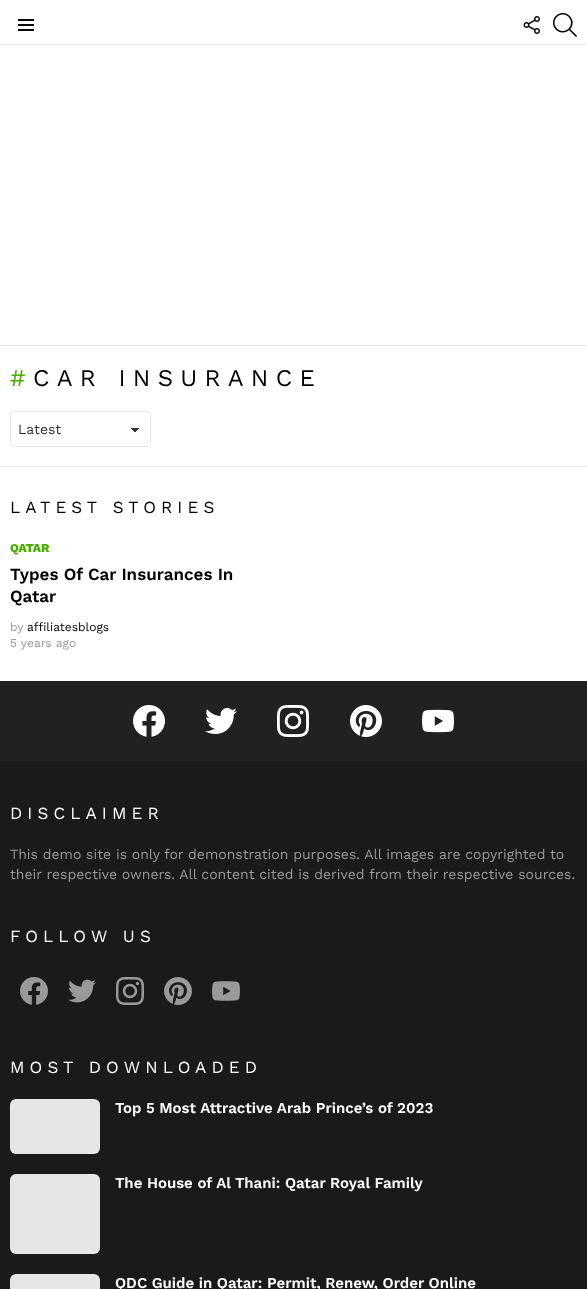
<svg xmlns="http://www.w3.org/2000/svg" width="587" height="1289">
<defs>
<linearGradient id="g1" gradientUnits="userSpaceOnUse" x1="135" y1="428" x2="140" y2="432"><stop offset="0.5" stop-color="#333"/><stop offset="0.5" stop-color="#fff"/></linearGradient>
<linearGradient id="g2" gradientUnits="userSpaceOnUse" x1="130" y1="432" x2="135" y2="428"><stop offset="0.5" stop-color="#fff"/><stop offset="0.5" stop-color="#333"/></linearGradient>
</defs>
<rect width="100%" height="100%" fill="#fff"/>
<image x="18" y="19" width="16" height="12" href="media/1.png"/>
<image x="523" y="16" width="17" height="18" href="media/2.png"/>
<image x="553" y="13" width="24" height="24" href="media/3.png"/>
<rect y="44" width="587" height="1" fill="#e9e9e9"/>
<rect y="345" width="587" height="1" fill="#e6e6e6"/>
<text x="10" y="386" style="font-family:Work Sans;font-size:24px;letter-spacing:7.25px;fill:#4aaf01">#</text>
<text x="33" y="386" style="font-family:Work Sans;font-size:24px;letter-spacing:7.25px;fill:#000">CAR INSURANCE</text>
<rect x="135" y="428" width="5" height="4" fill="url(#g1)"/>
<rect x="130" y="428" width="5" height="4" fill="url(#g2)"/>
<rect x="10.5" y="411.5" width="140" height="35" rx="3.5" fill="none" stroke="#e6e6e6"/>
<text x="18" y="434" style="font-family:Work Sans;font-size:14px;fill:#333">Latest</text>
<rect y="466" width="587" height="1" fill="#e6e6e6"/>
<text x="10" y="513" style="font-family:Work Sans;font-size:17px;letter-spacing:5.1px;fill:#000">LATEST STORIES</text>
<text x="10" y="552" style="font-family:Work Sans;font-size:12px;font-weight:800;fill:#4aaf01">QATAR</text>
<text x="10" y="580" style="font-family:Work Sans;font-size:17px;font-weight:600;fill:#000">Types Of Car Insurances In</text>
<text x="10" y="602" style="font-family:Work Sans;font-size:17px;font-weight:600;fill:#000">Qatar</text>
<text x="10" y="631" style="font-family:Work Sans;font-size:12px;fill:#999">by</text>
<text x="27" y="631" style="font-family:Work Sans;font-size:12px;fill:#000">affiliatesblogs</text>
<text x="10" y="647" style="font-family:Work Sans;font-size:12px;fill:#999">5 years ago</text>
<rect y="681" width="587" height="80" fill="#212121"/>
<image x="133" y="705" width="32" height="32" href="media/4.png"/>
<image x="205" y="708" width="32" height="26" href="media/5.png"/>
<image x="277" y="705" width="32" height="32" href="media/6.png"/>
<image x="350" y="705" width="32" height="32" href="media/7.png"/>
<image x="422" y="709" width="32" height="24" href="media/8.png"/>
<rect y="761" width="587" height="528" fill="#1a1a1a"/>
<text x="10" y="819" style="font-family:Work Sans;font-size:17px;letter-spacing:5.1px;fill:#fff">DISCLAIMER</text>
<text x="10" y="859" style="font-family:Work Sans;font-size:14px;fill:#999">This demo site is only for demonstration purposes. All images are copyrighted to</text>
<text x="10" y="879" style="font-family:Work Sans;font-size:14px;fill:#999">their respective owners. All content cited is derived from their respective sources.</text>
<text x="10" y="942" style="font-family:Work Sans;font-size:17px;letter-spacing:5.1px;fill:#fff">FOLLOW US</text>
<image x="20" y="977" width="28" height="28" href="media/9.png"/>
<image x="68" y="979" width="28" height="24" href="media/10.png"/>
<image x="116" y="977" width="28" height="28" href="media/11.png"/>
<image x="164" y="977" width="28" height="28" href="media/12.png"/>
<image x="212" y="981" width="28" height="20" href="media/13.png"/>
<text x="10" y="1073" style="font-family:Work Sans;font-size:17px;letter-spacing:5.1px;fill:#fff">MOST DOWNLOADED</text>
<rect x="10" y="1099" width="90" height="55" rx="6" fill="#e6e6e6"/>
<text x="115" y="1113" style="font-family:Work Sans;font-size:15px;font-weight:600;fill:#fff">Top 5 Most Attractive Arab Prince’s of 2023</text>
<rect x="10" y="1174" width="90" height="80" rx="6" fill="#e6e6e6"/>
<text x="115" y="1188" style="font-family:Work Sans;font-size:15px;font-weight:600;fill:#fff">The House of Al Thani: Qatar Royal Family</text>
<rect x="10" y="1274" width="90" height="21" rx="6" fill="#e6e6e6"/>
<text x="115" y="1288" style="font-family:Work Sans;font-size:15px;font-weight:600;fill:#fff">QDC Guide in Qatar: Permit, Renew, Order Online</text>
</svg>
